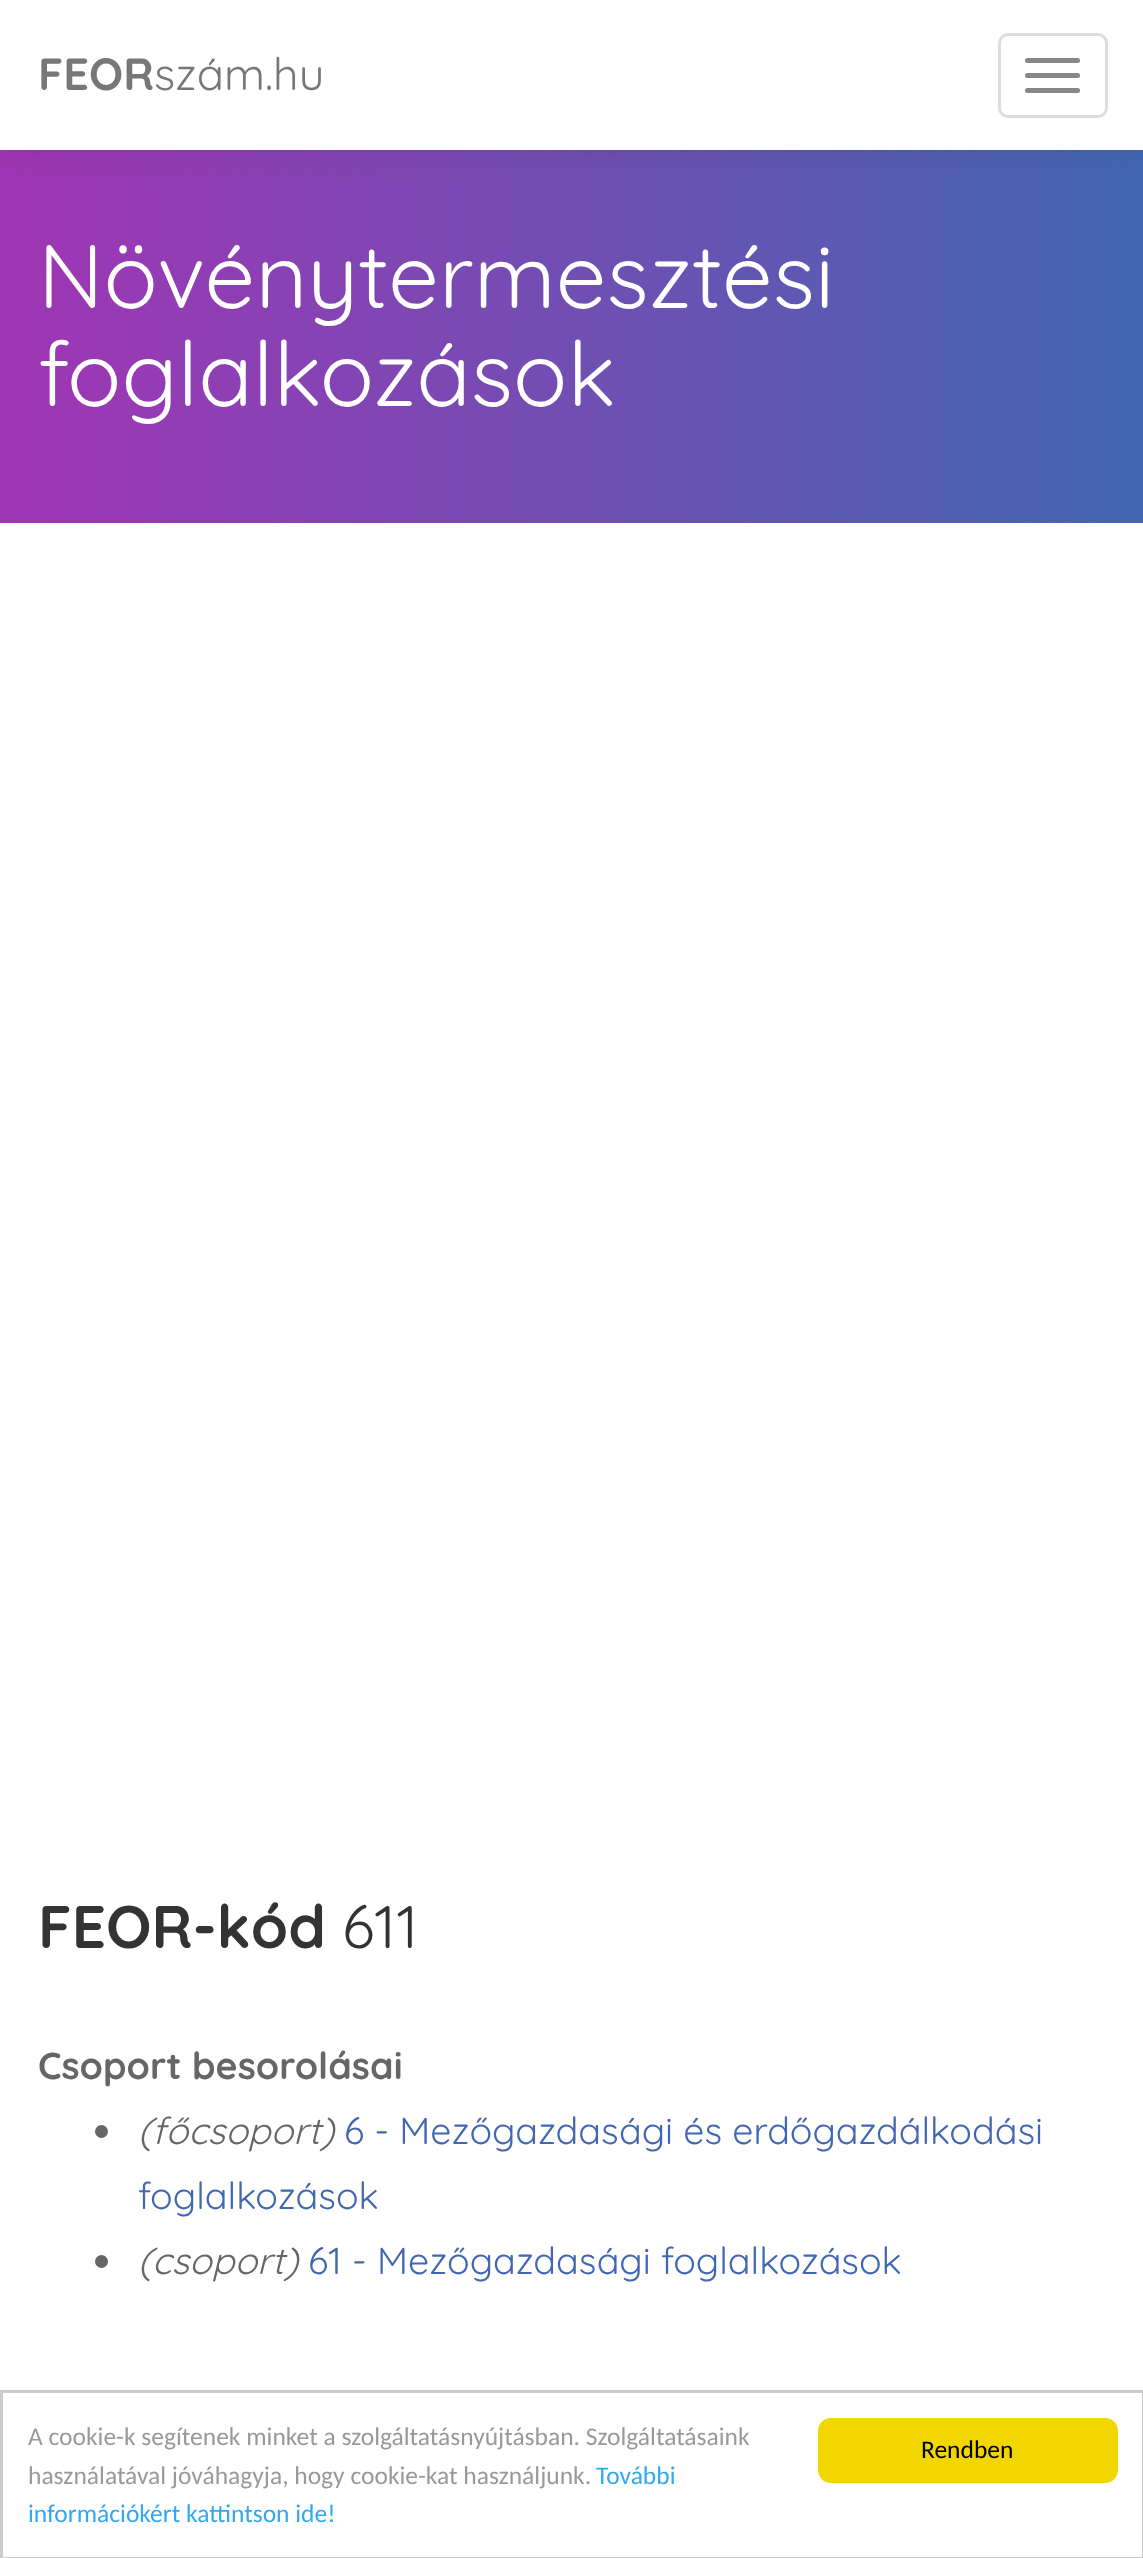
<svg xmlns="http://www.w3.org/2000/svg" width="1143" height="2558">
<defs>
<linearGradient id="g1" gradientUnits="userSpaceOnUse" x1="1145" y1="261" x2="0" y2="261"><stop offset="0" stop-color="#4267b2"/><stop offset="1" stop-color="#a035b3"/></linearGradient>
</defs>
<rect width="100%" height="100%" fill="#fff"/>
<rect y="150" width="1143" height="373" fill="url(#g1)"/>
<rect width="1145" height="150" fill="#0000001a" filter="blur(19px)"/>
<rect width="1143" height="150" fill="#fff"/>
<text x="38" y="90" style="font-family:Quicksand;font-size:45px;font-weight:bold;fill:#777">FEOR</text>
<text x="154" y="90" style="font-family:Quicksand;font-size:45px;fill:#777">szám.hu</text>
<rect x="999.5" y="34.5" width="107" height="82" rx="8.5" fill="none" stroke="#ddd" stroke-width="3"/>
<rect x="1025" y="58" width="55" height="5" rx="2.5" fill="#888"/>
<rect x="1025" y="73" width="55" height="5" rx="2.5" fill="#888"/>
<rect x="1025" y="88" width="55" height="5" rx="2.5" fill="#888"/>
<text x="38" y="308" style="font-family:Quicksand;font-size:90px;fill:#fff">Növénytermesztési</text>
<text x="38" y="406" style="font-family:Quicksand;font-size:90px;fill:#fff">foglalkozások</text>
<text x="38" y="1948" style="font-family:Quicksand;font-size:60px;font-weight:bold;fill:#333">FEOR-kód</text>
<text x="342" y="1948" style="font-family:Quicksand;font-size:60px;fill:#333">611</text>
<text x="38" y="2079" style="font-family:Quicksand;font-size:37.5px;font-weight:bold;fill:#666">Csoport besorolásai</text>
<circle cx="101.5" cy="2131.5" r="6.5" fill="#666"/>
<text x="138" y="2144" style="font-family:Quicksand;font-size:37.5px;font-style:italic;fill:#666">(főcsoport)</text>
<text x="344" y="2144" style="font-family:Quicksand;font-size:37.5px;fill:#4267b2">6 - Mezőgazdasági és erdőgazdálkodási</text>
<text x="138" y="2209" style="font-family:Quicksand;font-size:37.5px;fill:#4267b2">foglalkozások</text>
<circle cx="101.5" cy="2261.5" r="6.5" fill="#666"/>
<text x="138" y="2274" style="font-family:Quicksand;font-size:37.5px;font-style:italic;fill:#666">(csoport)</text>
<text x="308" y="2274" style="font-family:Quicksand;font-size:37.5px;fill:#4267b2">61 - Mezőgazdasági foglalkozások</text>
<rect x="1.5" y="2391.5" width="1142" height="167" fill="none" stroke="#ccc" stroke-width="3"/>
<text x="28" y="2445" style="font-family:Carlito;font-size:25.5px;fill:#999">A cookie-k segítenek minket a szolgáltatásnyújtásban. Szolgáltatásaink</text>
<text x="28" y="2484" style="font-family:Carlito;font-size:25.5px;fill:#999">használatával jóváhagyja, hogy cookie-kat használjunk.</text>
<text x="596" y="2484" style="font-family:Carlito;font-size:25.5px;fill:#31a8f0">További</text>
<text x="28" y="2522" style="font-family:Carlito;font-size:25.5px;fill:#31a8f0">információkért kattintson ide!</text>
<rect x="818" y="2418" width="300" height="65" rx="13" fill="#f1d600"/>
<text x="921" y="2458" style="font-family:Carlito;font-size:25.5px;fill:#000">Rendben</text>
</svg>
